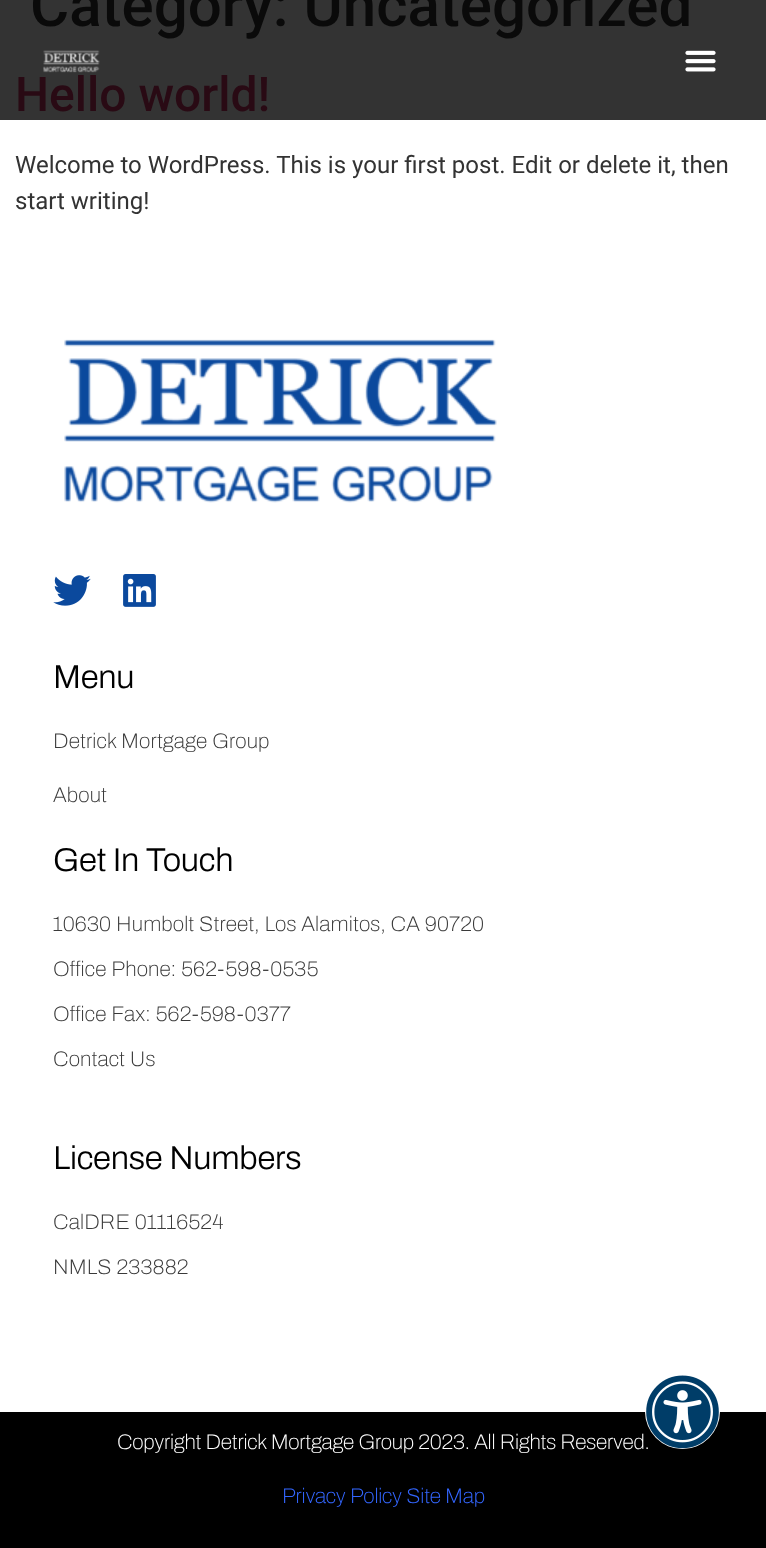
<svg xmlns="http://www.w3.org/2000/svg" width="766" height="1548">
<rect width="100%" height="100%" fill="#fff"/>
<rect width="766" height="120" fill="#333"/>
<text x="30" y="26" style="font-family:Roboto;font-size:60px;font-weight:500;fill:#0a0a0a">Category: Uncategorized</text>
<text x="15" y="111" style="font-family:Roboto;font-size:48px;font-weight:500;fill:#290a14">Hello world!</text>
<text x="15" y="173" style="font-family:Roboto;font-size:24px;fill:#333">Welcome to WordPress. This is your first post. Edit or delete it, then</text>
<text x="15" y="209" style="font-family:Roboto;font-size:24px;fill:#333">start writing!</text>
<image x="43" y="50" width="57" height="23" href="media/1.png"/>
<image x="685" y="50" width="31" height="22" href="media/2.png"/>
<image x="64" y="339" width="433" height="164" href="media/3.png"/>
<image x="53" y="575" width="38" height="31" href="media/4.png"/>
<image x="123" y="574" width="33" height="33" href="media/5.png"/>
<text x="53" y="688" style="font-family:Archivo;font-size:33px;font-weight:300;letter-spacing:-0.25px;fill:#000">Menu</text>
<text x="53" y="748" style="font-family:Archivo;font-size:21px;font-weight:100;letter-spacing:0.15px;fill:#3a3a3a">Detrick Mortgage Group</text>
<text x="53" y="802" style="font-family:Archivo;font-size:21px;font-weight:100;letter-spacing:0.15px;fill:#3a3a3a">About</text>
<text x="53" y="871" style="font-family:Archivo;font-size:33px;font-weight:300;letter-spacing:-0.25px;fill:#000">Get In Touch</text>
<text x="53" y="931" style="font-family:Archivo;font-size:21px;font-weight:100;letter-spacing:0.15px;fill:#3a3a3a">10630 Humbolt Street, Los Alamitos, CA 90720</text>
<text x="53" y="976" style="font-family:Archivo;font-size:21px;font-weight:100;letter-spacing:0.15px;fill:#3a3a3a">Office Phone: 562-598-0535</text>
<text x="53" y="1021" style="font-family:Archivo;font-size:21px;font-weight:100;letter-spacing:0.15px;fill:#3a3a3a">Office Fax: 562-598-0377</text>
<text x="53" y="1066" style="font-family:Archivo;font-size:21px;font-weight:100;letter-spacing:0.15px;fill:#3a3a3a">Contact Us</text>
<text x="53" y="1169" style="font-family:Archivo;font-size:33px;font-weight:300;letter-spacing:-0.25px;fill:#000">License Numbers</text>
<text x="53" y="1229" style="font-family:Archivo;font-size:21px;font-weight:100;letter-spacing:0.15px;fill:#3a3a3a">CalDRE 01116524</text>
<text x="53" y="1274" style="font-family:Archivo;font-size:21px;font-weight:100;letter-spacing:0.15px;fill:#3a3a3a">NMLS 233882</text>
<rect y="1412" width="766" height="136" fill="#000"/>
<text x="117" y="1449" style="font-family:Archivo;font-size:21px;font-weight:100;letter-spacing:-0.22px;fill:#fff">Copyright Detrick Mortgage Group 2023. All Rights Reserved.</text>
<text x="282" y="1503" style="font-family:Archivo;font-size:21px;font-weight:100;letter-spacing:-0.22px;fill:#36f">Privacy Policy Site Map</text>
<circle cx="682.5" cy="1411.5" r="37.5" fill="#fff"/>
<image x="646" y="1375" width="73" height="74" href="media/6.png"/>
</svg>
